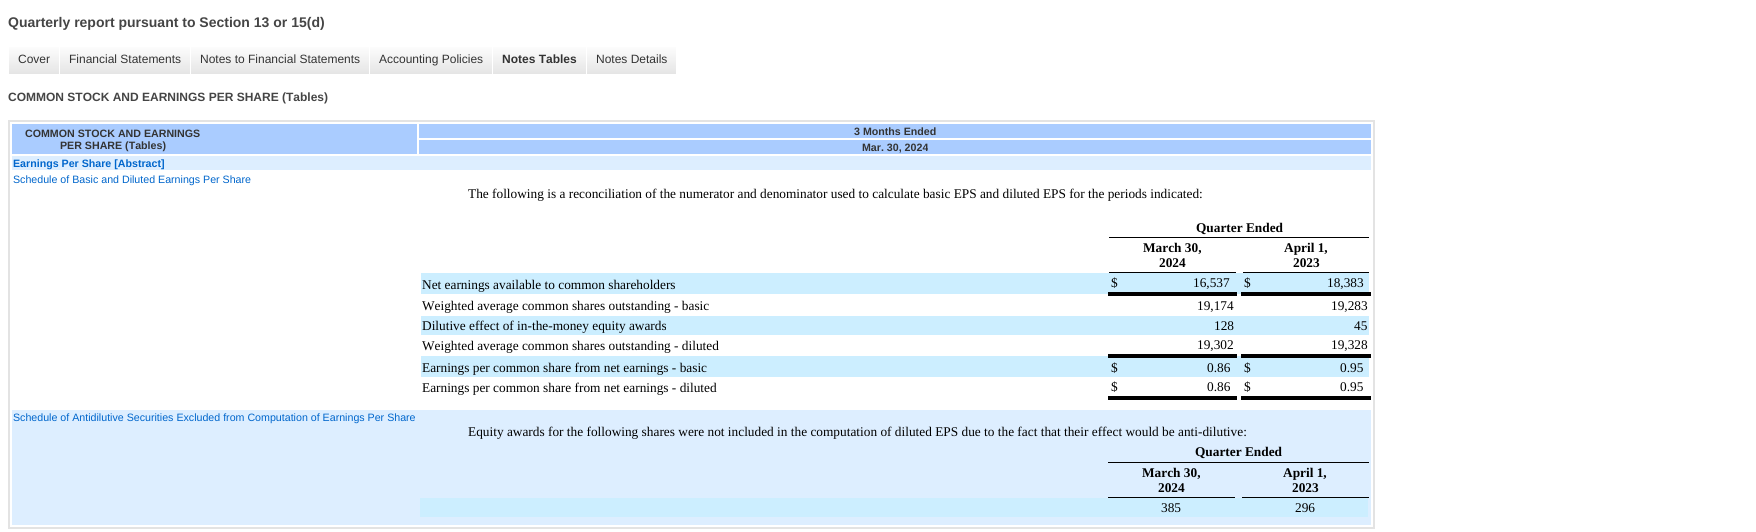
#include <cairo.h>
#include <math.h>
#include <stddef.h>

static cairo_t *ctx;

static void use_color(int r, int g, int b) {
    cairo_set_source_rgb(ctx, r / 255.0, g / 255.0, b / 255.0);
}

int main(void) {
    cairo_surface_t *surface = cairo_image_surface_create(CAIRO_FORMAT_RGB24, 1756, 532);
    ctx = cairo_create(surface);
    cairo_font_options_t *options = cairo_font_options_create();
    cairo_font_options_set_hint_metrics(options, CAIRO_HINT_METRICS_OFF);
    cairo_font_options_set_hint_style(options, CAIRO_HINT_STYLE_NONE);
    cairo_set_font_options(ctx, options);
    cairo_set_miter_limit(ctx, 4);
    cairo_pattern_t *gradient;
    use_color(255, 255, 255);
    cairo_paint(ctx);
    cairo_select_font_face(ctx, "Liberation Sans", CAIRO_FONT_SLANT_NORMAL, CAIRO_FONT_WEIGHT_BOLD);
    cairo_set_font_size(ctx, 14);
    use_color(69, 69, 69);
    cairo_move_to(ctx, 8, 27);
    cairo_show_text(ctx, "Quarterly report pursuant to Section 13 or 15(d)");
    gradient = cairo_pattern_create_linear(34, 44, 34, 74);
    cairo_pattern_add_color_stop_rgba(gradient, 0, 1, 1, 1, 1);
    cairo_pattern_add_color_stop_rgba(gradient, 1, 0.898, 0.898, 0.898, 1);
    cairo_set_source(ctx, gradient);
    cairo_pattern_destroy(gradient);
    cairo_rectangle(ctx, 9, 47, 50, 27);
    cairo_fill(ctx);
    cairo_select_font_face(ctx, "Liberation Sans", CAIRO_FONT_SLANT_NORMAL, CAIRO_FONT_WEIGHT_NORMAL);
    cairo_set_font_size(ctx, 12);
    use_color(51, 51, 51);
    cairo_move_to(ctx, 18, 63);
    cairo_show_text(ctx, "Cover");
    gradient = cairo_pattern_create_linear(125, 44, 125, 74);
    cairo_pattern_add_color_stop_rgba(gradient, 0, 1, 1, 1, 1);
    cairo_pattern_add_color_stop_rgba(gradient, 1, 0.898, 0.898, 0.898, 1);
    cairo_set_source(ctx, gradient);
    cairo_pattern_destroy(gradient);
    cairo_rectangle(ctx, 60, 47, 130, 27);
    cairo_fill(ctx);
    use_color(51, 51, 51);
    cairo_move_to(ctx, 69, 63);
    cairo_show_text(ctx, "Financial Statements");
    gradient = cairo_pattern_create_linear(280, 44, 280, 74);
    cairo_pattern_add_color_stop_rgba(gradient, 0, 1, 1, 1, 1);
    cairo_pattern_add_color_stop_rgba(gradient, 1, 0.898, 0.898, 0.898, 1);
    cairo_set_source(ctx, gradient);
    cairo_pattern_destroy(gradient);
    cairo_rectangle(ctx, 191, 47, 178, 27);
    cairo_fill(ctx);
    use_color(51, 51, 51);
    cairo_move_to(ctx, 200, 63);
    cairo_show_text(ctx, "Notes to Financial Statements");
    gradient = cairo_pattern_create_linear(431, 44, 431, 74);
    cairo_pattern_add_color_stop_rgba(gradient, 0, 1, 1, 1, 1);
    cairo_pattern_add_color_stop_rgba(gradient, 1, 0.898, 0.898, 0.898, 1);
    cairo_set_source(ctx, gradient);
    cairo_pattern_destroy(gradient);
    cairo_rectangle(ctx, 370, 47, 122, 27);
    cairo_fill(ctx);
    use_color(51, 51, 51);
    cairo_move_to(ctx, 379, 63);
    cairo_show_text(ctx, "Accounting Policies");
    gradient = cairo_pattern_create_linear(540, 44, 540, 74);
    cairo_pattern_add_color_stop_rgba(gradient, 0, 1, 1, 1, 1);
    cairo_pattern_add_color_stop_rgba(gradient, 1, 0.898, 0.898, 0.898, 1);
    cairo_set_source(ctx, gradient);
    cairo_pattern_destroy(gradient);
    cairo_rectangle(ctx, 493, 47, 93, 27);
    cairo_fill(ctx);
    cairo_select_font_face(ctx, "Liberation Sans", CAIRO_FONT_SLANT_NORMAL, CAIRO_FONT_WEIGHT_BOLD);
    use_color(51, 51, 51);
    cairo_move_to(ctx, 502, 63);
    cairo_show_text(ctx, "Notes Tables");
    gradient = cairo_pattern_create_linear(632, 44, 632, 74);
    cairo_pattern_add_color_stop_rgba(gradient, 0, 1, 1, 1, 1);
    cairo_pattern_add_color_stop_rgba(gradient, 1, 0.898, 0.898, 0.898, 1);
    cairo_set_source(ctx, gradient);
    cairo_pattern_destroy(gradient);
    cairo_rectangle(ctx, 587, 47, 89, 27);
    cairo_fill(ctx);
    cairo_select_font_face(ctx, "Liberation Sans", CAIRO_FONT_SLANT_NORMAL, CAIRO_FONT_WEIGHT_NORMAL);
    use_color(51, 51, 51);
    cairo_move_to(ctx, 596, 63);
    cairo_show_text(ctx, "Notes Details");
    cairo_select_font_face(ctx, "Liberation Sans", CAIRO_FONT_SLANT_NORMAL, CAIRO_FONT_WEIGHT_BOLD);
    use_color(69, 69, 69);
    cairo_move_to(ctx, 8, 101);
    cairo_show_text(ctx, "COMMON STOCK AND EARNINGS PER SHARE (Tables)");
    cairo_rectangle(ctx, 9, 121, 1365, 407);
    use_color(227, 227, 227);
    cairo_stroke(ctx);
    use_color(170, 204, 255);
    cairo_rectangle(ctx, 12, 124, 405, 30);
    cairo_fill(ctx);
    cairo_set_font_size(ctx, 10.65);
    use_color(51, 51, 51);
    cairo_move_to(ctx, 25, 137);
    cairo_show_text(ctx, "COMMON STOCK AND EARNINGS");
    cairo_move_to(ctx, 60, 149);
    cairo_show_text(ctx, "PER SHARE (Tables)");
    use_color(170, 204, 255);
    cairo_rectangle(ctx, 419, 124, 952, 14);
    cairo_fill(ctx);
    use_color(51, 51, 51);
    cairo_move_to(ctx, 854, 135);
    cairo_show_text(ctx, "3 Months Ended");
    use_color(170, 204, 255);
    cairo_rectangle(ctx, 419, 140, 952, 14);
    cairo_fill(ctx);
    use_color(51, 51, 51);
    cairo_move_to(ctx, 862, 151);
    cairo_show_text(ctx, "Mar. 30, 2024");
    use_color(221, 238, 255);
    cairo_rectangle(ctx, 12, 156, 1359, 14);
    cairo_fill(ctx);
    use_color(0, 102, 204);
    cairo_move_to(ctx, 13, 167);
    cairo_show_text(ctx, "Earnings Per Share [Abstract]");
    cairo_select_font_face(ctx, "Liberation Sans", CAIRO_FONT_SLANT_NORMAL, CAIRO_FONT_WEIGHT_NORMAL);
    cairo_move_to(ctx, 13, 183);
    cairo_show_text(ctx, "Schedule of Basic and Diluted Earnings Per Share");
    cairo_select_font_face(ctx, "Liberation Serif", CAIRO_FONT_SLANT_NORMAL, CAIRO_FONT_WEIGHT_NORMAL);
    cairo_set_font_size(ctx, 13.33);
    use_color(0, 0, 0);
    cairo_move_to(ctx, 468, 198);
    cairo_show_text(ctx, "The following is a reconciliation of the numerator and denominator used to calculate basic EPS and diluted EPS for the periods indicated:");
    cairo_select_font_face(ctx, "Liberation Serif", CAIRO_FONT_SLANT_NORMAL, CAIRO_FONT_WEIGHT_BOLD);
    cairo_move_to(ctx, 1196, 232);
    cairo_show_text(ctx, "Quarter Ended");
    cairo_move_to(ctx, 1143, 252);
    cairo_show_text(ctx, "March 30,");
    cairo_move_to(ctx, 1159, 267);
    cairo_show_text(ctx, "2024");
    cairo_rectangle(ctx, 1109, 237, 260, 1);
    cairo_fill(ctx);
    cairo_move_to(ctx, 1284, 252);
    cairo_show_text(ctx, "April 1,");
    cairo_move_to(ctx, 1293, 267);
    cairo_show_text(ctx, "2023");
    use_color(204, 238, 255);
    cairo_rectangle(ctx, 1233, 273, 10, 21);
    cairo_fill(ctx);
    use_color(0, 0, 0);
    cairo_rectangle(ctx, 1109, 272, 127, 1);
    cairo_fill(ctx);
    use_color(204, 238, 255);
    cairo_rectangle(ctx, 1367, 273, 2, 21);
    cairo_fill(ctx);
    use_color(0, 0, 0);
    cairo_rectangle(ctx, 1243, 272, 126, 1);
    cairo_fill(ctx);
    use_color(204, 238, 255);
    cairo_rectangle(ctx, 421, 273, 689, 21);
    cairo_fill(ctx);
    cairo_select_font_face(ctx, "Liberation Serif", CAIRO_FONT_SLANT_NORMAL, CAIRO_FONT_WEIGHT_NORMAL);
    use_color(0, 0, 0);
    cairo_move_to(ctx, 422, 289);
    cairo_show_text(ctx, "Net earnings available to common shareholders");
    use_color(204, 238, 255);
    cairo_rectangle(ctx, 1110, 273, 123, 19);
    cairo_fill(ctx);
    use_color(0, 0, 0);
    cairo_move_to(ctx, 1111, 287);
    cairo_show_text(ctx, "$");
    cairo_move_to(ctx, 1193, 287);
    cairo_show_text(ctx, "16,537");
    use_color(204, 238, 255);
    cairo_rectangle(ctx, 1243, 273, 124, 19);
    cairo_fill(ctx);
    use_color(0, 0, 0);
    cairo_move_to(ctx, 1244, 287);
    cairo_show_text(ctx, "$");
    cairo_move_to(ctx, 1327, 287);
    cairo_show_text(ctx, "18,383");
    cairo_move_to(ctx, 422, 310);
    cairo_show_text(ctx, "Weighted average common shares outstanding - basic");
    cairo_rectangle(ctx, 1108, 292, 129, 4);
    cairo_fill(ctx);
    cairo_move_to(ctx, 1197, 310);
    cairo_show_text(ctx, "19,174");
    cairo_rectangle(ctx, 1241, 292, 130, 4);
    cairo_fill(ctx);
    cairo_move_to(ctx, 1331, 310);
    cairo_show_text(ctx, "19,283");
    use_color(204, 238, 255);
    cairo_rectangle(ctx, 421, 316, 948, 19);
    cairo_fill(ctx);
    use_color(0, 0, 0);
    cairo_move_to(ctx, 422, 330);
    cairo_show_text(ctx, "Dilutive effect of in-the-money equity awards");
    cairo_move_to(ctx, 1214, 330);
    cairo_show_text(ctx, "128");
    cairo_move_to(ctx, 1354, 330);
    cairo_show_text(ctx, "45");
    cairo_move_to(ctx, 422, 350);
    cairo_show_text(ctx, "Weighted average common shares outstanding - diluted");
    cairo_move_to(ctx, 1197, 349);
    cairo_show_text(ctx, "19,302");
    cairo_move_to(ctx, 1331, 349);
    cairo_show_text(ctx, "19,328");
    use_color(204, 238, 255);
    cairo_rectangle(ctx, 421, 356, 689, 21);
    cairo_fill(ctx);
    use_color(0, 0, 0);
    cairo_move_to(ctx, 422, 372);
    cairo_show_text(ctx, "Earnings per common share from net earnings - basic");
    use_color(204, 238, 255);
    cairo_rectangle(ctx, 1233, 356, 10, 21);
    cairo_fill(ctx);
    use_color(0, 0, 0);
    cairo_rectangle(ctx, 1108, 354, 129, 4);
    cairo_fill(ctx);
    use_color(204, 238, 255);
    cairo_rectangle(ctx, 1367, 356, 2, 21);
    cairo_fill(ctx);
    use_color(0, 0, 0);
    cairo_rectangle(ctx, 1241, 354, 130, 4);
    cairo_fill(ctx);
    use_color(204, 238, 255);
    cairo_rectangle(ctx, 1110, 358, 123, 19);
    cairo_fill(ctx);
    use_color(0, 0, 0);
    cairo_move_to(ctx, 1111, 372);
    cairo_show_text(ctx, "$");
    cairo_move_to(ctx, 1207, 372);
    cairo_show_text(ctx, "0.86");
    use_color(204, 238, 255);
    cairo_rectangle(ctx, 1243, 358, 124, 19);
    cairo_fill(ctx);
    use_color(0, 0, 0);
    cairo_move_to(ctx, 1244, 372);
    cairo_show_text(ctx, "$");
    cairo_move_to(ctx, 1340, 372);
    cairo_show_text(ctx, "0.95");
    cairo_move_to(ctx, 422, 392);
    cairo_show_text(ctx, "Earnings per common share from net earnings - diluted");
    cairo_move_to(ctx, 1111, 391);
    cairo_show_text(ctx, "$");
    cairo_move_to(ctx, 1207, 391);
    cairo_show_text(ctx, "0.86");
    cairo_move_to(ctx, 1244, 391);
    cairo_show_text(ctx, "$");
    cairo_move_to(ctx, 1340, 391);
    cairo_show_text(ctx, "0.95");
    cairo_rectangle(ctx, 1108, 396, 129, 4);
    cairo_fill(ctx);
    cairo_rectangle(ctx, 1241, 396, 130, 4);
    cairo_fill(ctx);
    use_color(221, 238, 255);
    cairo_rectangle(ctx, 12, 410, 1359, 115);
    cairo_fill(ctx);
    cairo_select_font_face(ctx, "Liberation Sans", CAIRO_FONT_SLANT_NORMAL, CAIRO_FONT_WEIGHT_NORMAL);
    cairo_set_font_size(ctx, 10.65);
    use_color(0, 102, 204);
    cairo_move_to(ctx, 13, 421);
    cairo_show_text(ctx, "Schedule of Antidilutive Securities Excluded from Computation of Earnings Per Share");
    cairo_select_font_face(ctx, "Liberation Serif", CAIRO_FONT_SLANT_NORMAL, CAIRO_FONT_WEIGHT_NORMAL);
    cairo_set_font_size(ctx, 13.33);
    use_color(0, 0, 0);
    cairo_move_to(ctx, 468, 436);
    cairo_show_text(ctx, "Equity awards for the following shares were not included in the computation of diluted EPS due to the fact that their effect would be anti-dilutive:");
    cairo_select_font_face(ctx, "Liberation Serif", CAIRO_FONT_SLANT_NORMAL, CAIRO_FONT_WEIGHT_BOLD);
    cairo_move_to(ctx, 1195, 456);
    cairo_show_text(ctx, "Quarter Ended");
    cairo_move_to(ctx, 1142, 477);
    cairo_show_text(ctx, "March 30,");
    cairo_move_to(ctx, 1158, 492);
    cairo_show_text(ctx, "2024");
    cairo_rectangle(ctx, 1108, 462, 261, 1);
    cairo_fill(ctx);
    cairo_move_to(ctx, 1283, 477);
    cairo_show_text(ctx, "April 1,");
    cairo_move_to(ctx, 1292, 492);
    cairo_show_text(ctx, "2023");
    use_color(204, 238, 255);
    cairo_rectangle(ctx, 420, 498, 948, 19);
    cairo_fill(ctx);
    use_color(0, 0, 0);
    cairo_rectangle(ctx, 1108, 497, 127, 1);
    cairo_fill(ctx);
    cairo_select_font_face(ctx, "Liberation Serif", CAIRO_FONT_SLANT_NORMAL, CAIRO_FONT_WEIGHT_NORMAL);
    cairo_move_to(ctx, 1161, 512);
    cairo_show_text(ctx, "385");
    cairo_rectangle(ctx, 1242, 497, 127, 1);
    cairo_fill(ctx);
    cairo_move_to(ctx, 1295, 512);
    cairo_show_text(ctx, "296");
    cairo_surface_write_to_png(surface, "result.png");
    cairo_font_options_destroy(options);
    cairo_destroy(ctx);
    cairo_surface_destroy(surface);
    return 0;
}
